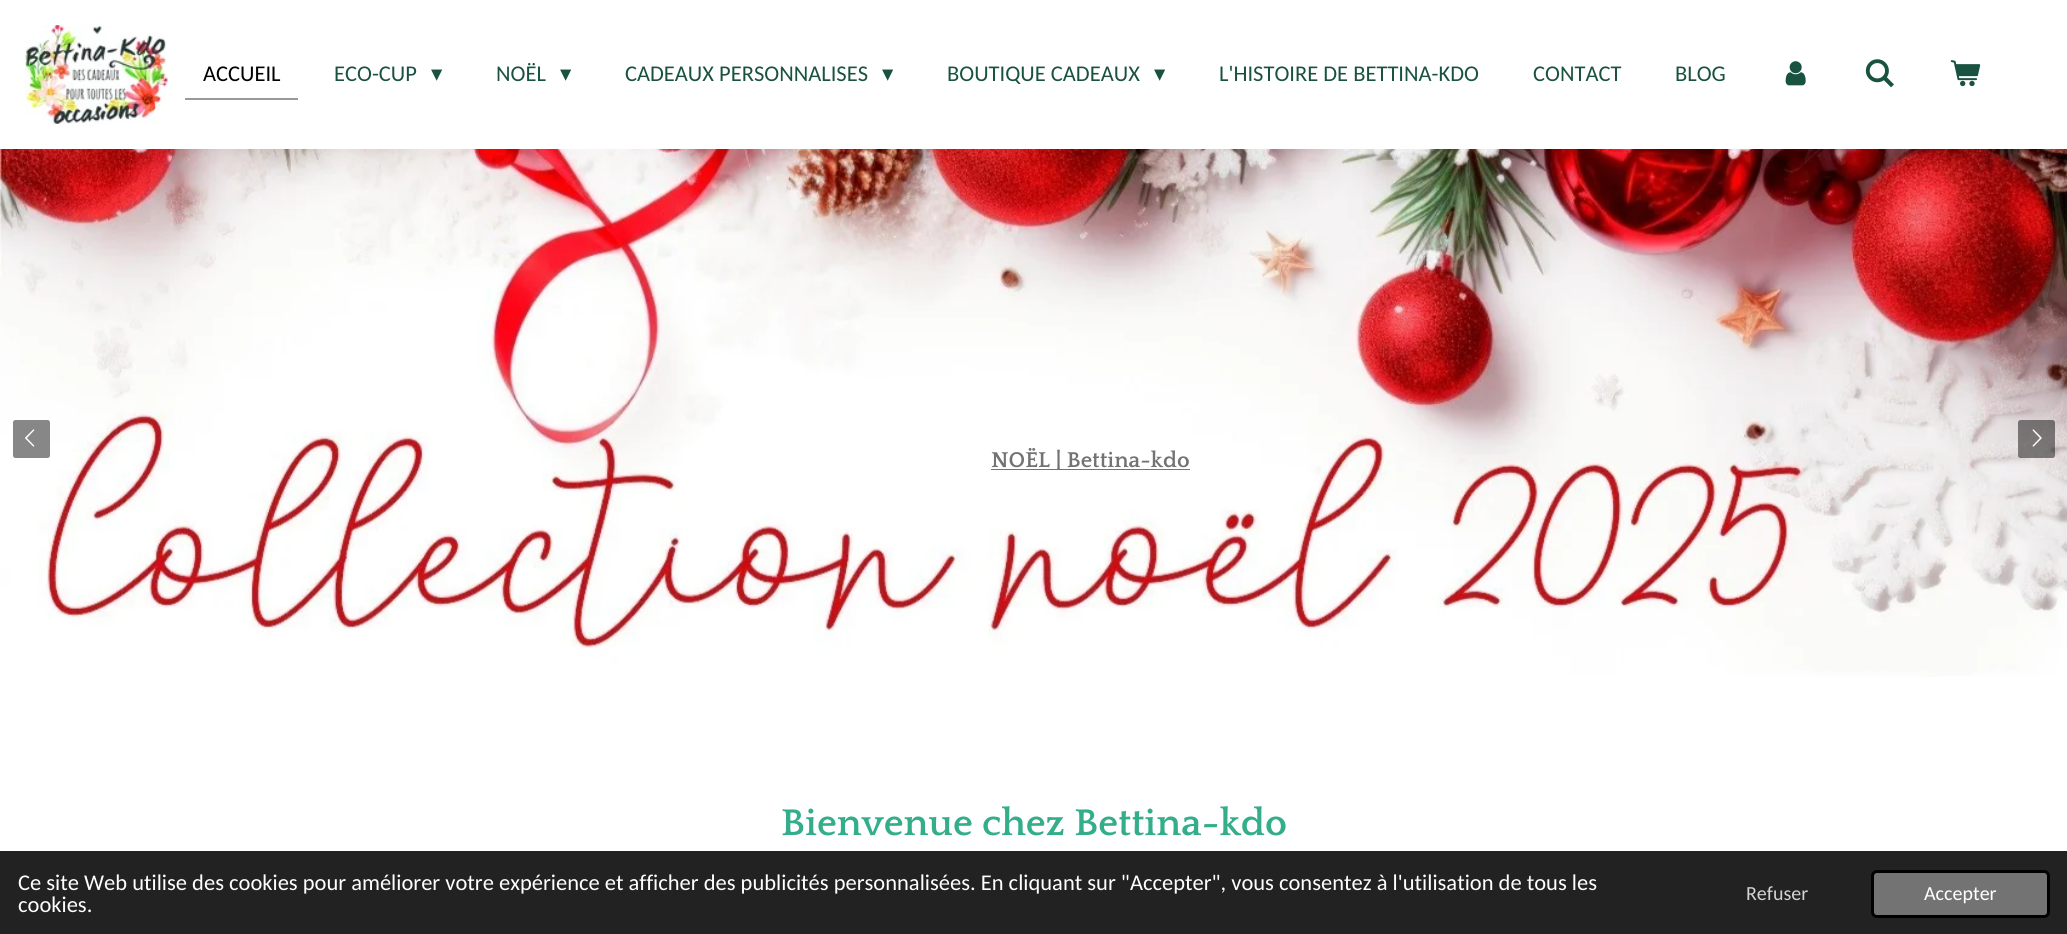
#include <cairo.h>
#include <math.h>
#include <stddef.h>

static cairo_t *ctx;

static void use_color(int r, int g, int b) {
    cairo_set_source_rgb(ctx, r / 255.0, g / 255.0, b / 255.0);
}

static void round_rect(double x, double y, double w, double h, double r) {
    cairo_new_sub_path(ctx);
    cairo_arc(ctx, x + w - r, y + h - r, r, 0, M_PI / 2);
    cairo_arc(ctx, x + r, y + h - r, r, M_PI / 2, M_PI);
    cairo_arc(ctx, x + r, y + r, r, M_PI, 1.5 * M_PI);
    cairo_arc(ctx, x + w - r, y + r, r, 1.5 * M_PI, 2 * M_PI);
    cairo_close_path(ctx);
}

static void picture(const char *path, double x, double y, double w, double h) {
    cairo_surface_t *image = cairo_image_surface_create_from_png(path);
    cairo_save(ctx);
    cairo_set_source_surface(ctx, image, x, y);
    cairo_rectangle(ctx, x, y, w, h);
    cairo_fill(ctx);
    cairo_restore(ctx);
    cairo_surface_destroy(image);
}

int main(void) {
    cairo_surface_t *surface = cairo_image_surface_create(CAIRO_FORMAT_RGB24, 2067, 934);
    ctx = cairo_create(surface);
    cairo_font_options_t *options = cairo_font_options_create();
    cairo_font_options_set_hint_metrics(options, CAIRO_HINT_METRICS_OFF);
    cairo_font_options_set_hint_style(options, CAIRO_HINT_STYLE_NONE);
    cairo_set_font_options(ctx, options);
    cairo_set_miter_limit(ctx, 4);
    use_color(255, 255, 255);
    cairo_paint(ctx);
    picture("img1.png", 25, 25, 143, 99);
    use_color(153, 153, 153);
    cairo_new_path(ctx);
    cairo_move_to(ctx, 185, 98);
    cairo_line_to(ctx, 185, 100);
    cairo_line_to(ctx, 298, 100);
    cairo_line_to(ctx, 298, 54);
    cairo_line_to(ctx, 298, 98);
    cairo_close_path(ctx);
    cairo_fill(ctx);
    cairo_select_font_face(ctx, "Carlito", CAIRO_FONT_SLANT_NORMAL, CAIRO_FONT_WEIGHT_NORMAL);
    cairo_set_font_size(ctx, 22.5);
    use_color(0, 0, 0);
    cairo_move_to(ctx, 203, 81);
    cairo_show_text(ctx, "ACCUEIL");
    use_color(25, 82, 65);
    cairo_move_to(ctx, 334, 81);
    cairo_show_text(ctx, "ECO-CUP");
    cairo_select_font_face(ctx, "DejaVu Sans", CAIRO_FONT_SLANT_NORMAL, CAIRO_FONT_WEIGHT_NORMAL);
    cairo_move_to(ctx, 431, 81);
    cairo_show_text(ctx, "▾");
    cairo_select_font_face(ctx, "Carlito", CAIRO_FONT_SLANT_NORMAL, CAIRO_FONT_WEIGHT_NORMAL);
    cairo_move_to(ctx, 496, 81);
    cairo_show_text(ctx, "NOËL");
    cairo_select_font_face(ctx, "DejaVu Sans", CAIRO_FONT_SLANT_NORMAL, CAIRO_FONT_WEIGHT_NORMAL);
    cairo_move_to(ctx, 560, 81);
    cairo_show_text(ctx, "▾");
    cairo_select_font_face(ctx, "Carlito", CAIRO_FONT_SLANT_NORMAL, CAIRO_FONT_WEIGHT_NORMAL);
    cairo_move_to(ctx, 625, 81);
    cairo_show_text(ctx, "CADEAUX PERSONNALISES");
    cairo_select_font_face(ctx, "DejaVu Sans", CAIRO_FONT_SLANT_NORMAL, CAIRO_FONT_WEIGHT_NORMAL);
    cairo_move_to(ctx, 882, 81);
    cairo_show_text(ctx, "▾");
    cairo_select_font_face(ctx, "Carlito", CAIRO_FONT_SLANT_NORMAL, CAIRO_FONT_WEIGHT_NORMAL);
    cairo_move_to(ctx, 947, 81);
    cairo_show_text(ctx, "BOUTIQUE CADEAUX");
    cairo_select_font_face(ctx, "DejaVu Sans", CAIRO_FONT_SLANT_NORMAL, CAIRO_FONT_WEIGHT_NORMAL);
    cairo_move_to(ctx, 1154, 81);
    cairo_show_text(ctx, "▾");
    cairo_select_font_face(ctx, "Carlito", CAIRO_FONT_SLANT_NORMAL, CAIRO_FONT_WEIGHT_NORMAL);
    cairo_move_to(ctx, 1219, 81);
    cairo_show_text(ctx, "L'HISTOIRE DE BETTINA-KDO");
    cairo_move_to(ctx, 1533, 81);
    cairo_show_text(ctx, "CONTACT");
    cairo_move_to(ctx, 1675, 81);
    cairo_show_text(ctx, "BLOG");
    picture("img2.png", 1785, 61, 21, 25);
    picture("img3.png", 1865, 59, 29, 29);
    picture("img4.png", 1950, 60, 31, 27);
    picture("img7.png", 0, 149, 2067, 528);
    use_color(135, 135, 135);
    round_rect(13, 420, 37, 38, 2.5);
    cairo_fill(ctx);
    picture("img5.png", 25, 429, 10, 18);
    cairo_set_source_rgba(ctx, 0.059, 0.059, 0.059, 0.5);
    round_rect(2018, 420, 37, 38, 2.5);
    cairo_fill(ctx);
    picture("img6.png", 2032, 429, 10, 18);
    use_color(115, 115, 115);
    cairo_rectangle(ctx, 991, 469, 199, 1);
    cairo_fill(ctx);
    cairo_select_font_face(ctx, "Quattrocento", CAIRO_FONT_SLANT_NORMAL, CAIRO_FONT_WEIGHT_BOLD);
    cairo_move_to(ctx, 991, 467);
    cairo_show_text(ctx, "NOËL | Bettina-kdo");
    cairo_set_font_size(ctx, 39);
    use_color(52, 174, 138);
    cairo_move_to(ctx, 781, 835);
    cairo_show_text(ctx, "Bienvenue chez Bettina-kdo");
    use_color(34, 34, 34);
    cairo_rectangle(ctx, 0, 851, 2067, 83);
    cairo_fill(ctx);
    cairo_select_font_face(ctx, "Carlito", CAIRO_FONT_SLANT_NORMAL, CAIRO_FONT_WEIGHT_NORMAL);
    cairo_set_font_size(ctx, 22.5);
    use_color(255, 255, 255);
    cairo_move_to(ctx, 18, 890);
    cairo_show_text(ctx, "Ce site Web utilise des cookies pour améliorer votre expérience et afficher des publicités personnalisées. En cliquant sur \"Accepter\", vous consentez à l'utilisation de tous les");
    cairo_move_to(ctx, 18, 912);
    cairo_show_text(ctx, "cookies.");
    cairo_set_font_size(ctx, 20);
    use_color(211, 211, 211);
    cairo_move_to(ctx, 1746, 900);
    cairo_show_text(ctx, "Refuser");
    use_color(115, 115, 115);
    round_rect(1872.5, 871.5, 176, 45, 4.5);
    cairo_fill_preserve(ctx);
    use_color(0, 0, 0);
    cairo_set_line_width(ctx, 3);
    cairo_stroke(ctx);
    use_color(255, 255, 255);
    cairo_move_to(ctx, 1924, 900);
    cairo_show_text(ctx, "Accepter");
    cairo_surface_write_to_png(surface, "result.png");
    cairo_font_options_destroy(options);
    cairo_destroy(ctx);
    cairo_surface_destroy(surface);
    return 0;
}
